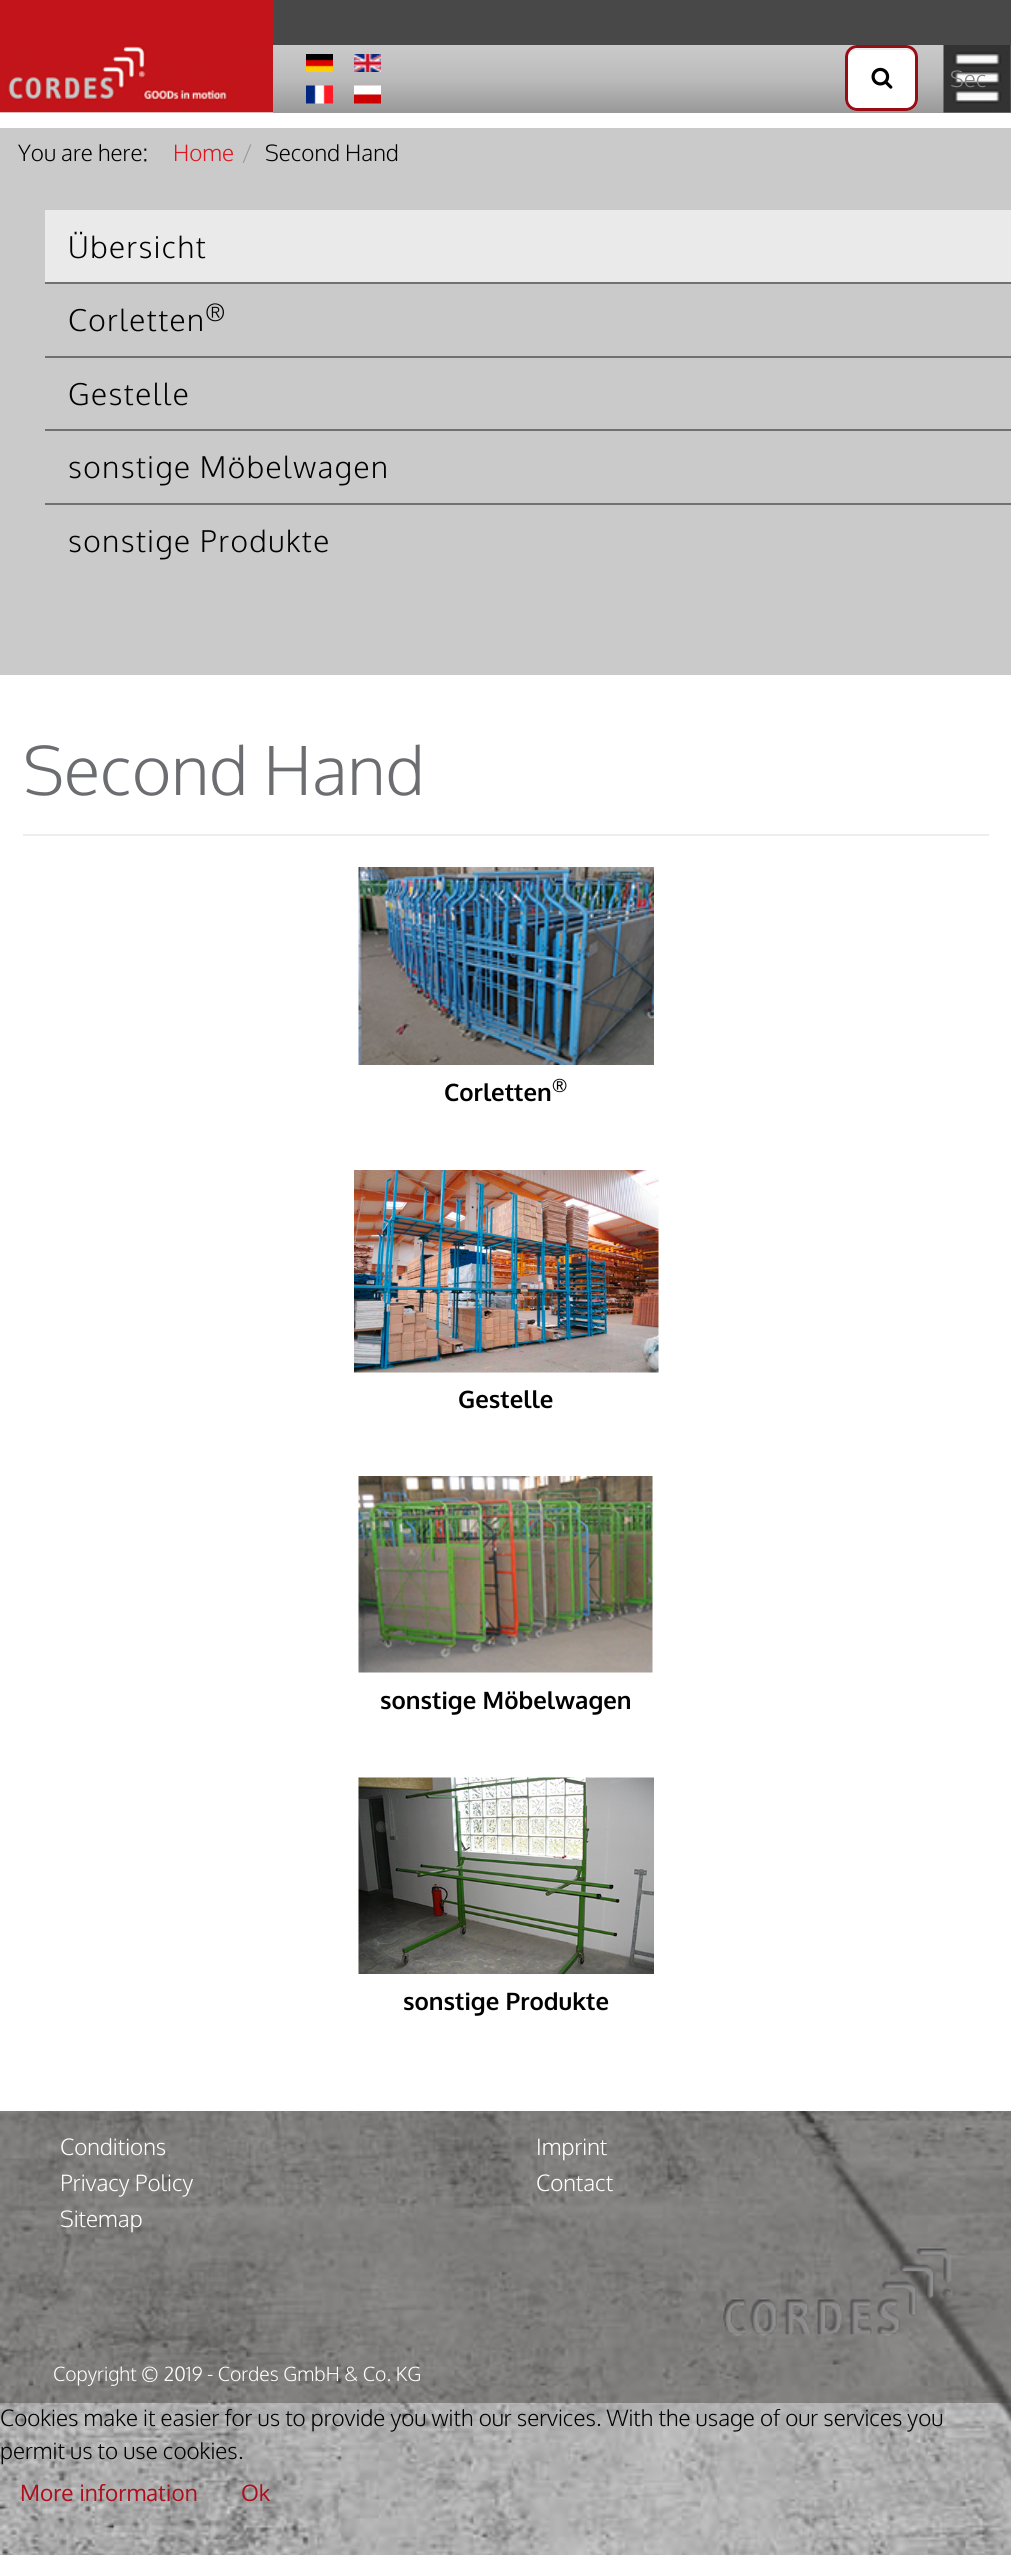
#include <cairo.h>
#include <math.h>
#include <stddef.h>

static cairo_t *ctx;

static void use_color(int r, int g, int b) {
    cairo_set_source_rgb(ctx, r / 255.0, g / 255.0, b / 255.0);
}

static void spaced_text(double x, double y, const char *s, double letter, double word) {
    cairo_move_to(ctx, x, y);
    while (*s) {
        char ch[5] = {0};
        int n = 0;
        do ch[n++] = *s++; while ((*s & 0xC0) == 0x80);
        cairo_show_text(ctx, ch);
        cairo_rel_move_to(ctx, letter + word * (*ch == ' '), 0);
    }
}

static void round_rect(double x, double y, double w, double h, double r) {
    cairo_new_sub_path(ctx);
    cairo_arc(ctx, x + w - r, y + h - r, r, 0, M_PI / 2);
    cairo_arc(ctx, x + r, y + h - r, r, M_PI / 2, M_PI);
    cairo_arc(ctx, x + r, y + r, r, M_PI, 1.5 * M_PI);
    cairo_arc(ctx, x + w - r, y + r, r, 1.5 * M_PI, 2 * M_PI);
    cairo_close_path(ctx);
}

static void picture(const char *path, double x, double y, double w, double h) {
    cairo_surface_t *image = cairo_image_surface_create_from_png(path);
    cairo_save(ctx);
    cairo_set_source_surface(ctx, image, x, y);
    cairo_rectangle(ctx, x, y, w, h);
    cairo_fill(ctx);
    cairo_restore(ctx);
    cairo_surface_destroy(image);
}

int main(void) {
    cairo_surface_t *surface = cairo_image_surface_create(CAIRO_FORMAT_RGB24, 1011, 2555);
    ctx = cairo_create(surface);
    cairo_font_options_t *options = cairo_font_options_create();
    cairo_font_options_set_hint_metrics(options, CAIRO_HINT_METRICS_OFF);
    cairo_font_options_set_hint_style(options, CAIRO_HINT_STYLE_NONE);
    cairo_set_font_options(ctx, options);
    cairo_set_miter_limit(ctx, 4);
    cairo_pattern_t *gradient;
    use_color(255, 255, 255);
    cairo_paint(ctx);
    picture("img1.png", 0, 2111, 1011, 444);
    use_color(72, 72, 72);
    cairo_rectangle(ctx, 273, 0, 738, 45);
    cairo_fill(ctx);
    gradient = cairo_pattern_create_linear(506, 45, 506, 113);
    cairo_pattern_add_color_stop_rgba(gradient, 0, 0.792, 0.792, 0.792, 1);
    cairo_pattern_add_color_stop_rgba(gradient, 0.5, 0.733, 0.733, 0.733, 1);
    cairo_pattern_add_color_stop_rgba(gradient, 1, 0.6, 0.6, 0.6, 1);
    cairo_set_source(ctx, gradient);
    cairo_pattern_destroy(gradient);
    cairo_rectangle(ctx, 273, 45, 738, 68);
    cairo_fill(ctx);
    use_color(238, 238, 238);
    cairo_rectangle(ctx, 0, 112, 273, 1);
    cairo_fill(ctx);
    picture("img2.png", 0, 0, 273, 113);
    picture("img3.png", 306, 54, 27, 18);
    picture("img4.png", 354, 54, 27, 18);
    picture("img5.png", 306, 85, 27, 19);
    picture("img6.png", 354, 85, 27, 19);
    use_color(255, 255, 255);
    round_rect(845, 45, 73, 66, 12);
    cairo_fill(ctx);
    use_color(236, 236, 236);
    cairo_new_path(ctx);
    cairo_move_to(ctx, 856, 50);
    cairo_line_to(ctx, 906, 50);
    cairo_curve_to(ctx, 911, 50, 915, 54, 915, 58);
    cairo_curve_to(ctx, 915, 47, 906, 48, 898, 48);
    cairo_line_to(ctx, 865, 48);
    cairo_curve_to(ctx, 857, 48, 848, 47, 848, 58);
    cairo_curve_to(ctx, 848, 54, 852, 50, 856, 50);
    cairo_close_path(ctx);
    cairo_fill(ctx);
    round_rect(846.5, 46.5, 70, 63, 10.5);
    use_color(153, 12, 20);
    cairo_set_line_width(ctx, 3);
    cairo_stroke(ctx);
    picture("img7.png", 871, 67, 22, 22);
    picture("img8.png", 943, 45, 68, 68);
    cairo_select_font_face(ctx, "Oxygen Light", CAIRO_FONT_SLANT_NORMAL, CAIRO_FONT_WEIGHT_NORMAL);
    cairo_set_font_size(ctx, 22.5);
    use_color(132, 132, 132);
    cairo_move_to(ctx, 950, 87);
    cairo_show_text(ctx, "Sec");
    use_color(202, 202, 202);
    cairo_rectangle(ctx, 0, 128, 1011, 547);
    cairo_fill(ctx);
    use_color(0, 0, 0);
    cairo_move_to(ctx, 18, 161);
    cairo_show_text(ctx, "You are here:");
    use_color(224, 18, 29);
    cairo_move_to(ctx, 173, 161);
    cairo_show_text(ctx, "Home");
    use_color(153, 153, 153);
    cairo_move_to(ctx, 242, 161);
    cairo_show_text(ctx, "/");
    use_color(0, 0, 0);
    cairo_move_to(ctx, 265, 161);
    cairo_show_text(ctx, "Second Hand");
    use_color(112, 112, 112);
    cairo_rectangle(ctx, 45, 282, 966, 2);
    cairo_fill(ctx);
    use_color(234, 234, 234);
    cairo_rectangle(ctx, 45, 210, 966, 72);
    cairo_fill(ctx);
    cairo_set_font_size(ctx, 30);
    use_color(0, 0, 0);
    spaced_text(68, 258, "Übersicht", 1.5, 0);
    use_color(112, 112, 112);
    cairo_rectangle(ctx, 45, 356, 966, 2);
    cairo_fill(ctx);
    use_color(0, 0, 0);
    spaced_text(68, 331, "Corletten", 1.5, 0);
    cairo_set_font_size(ctx, 22.5);
    spaced_text(205, 320, "®", 1.5, 0);
    use_color(112, 112, 112);
    cairo_rectangle(ctx, 45, 429, 966, 2);
    cairo_fill(ctx);
    cairo_set_font_size(ctx, 30);
    use_color(0, 0, 0);
    spaced_text(68, 405, "Gestelle", 1.5, 0);
    use_color(112, 112, 112);
    cairo_rectangle(ctx, 45, 503, 966, 2);
    cairo_fill(ctx);
    use_color(0, 0, 0);
    spaced_text(68, 478, "sonstige Möbelwagen", 1.5, 0);
    spaced_text(68, 552, "sonstige Produkte", 1.5, 0);
    use_color(238, 238, 238);
    cairo_rectangle(ctx, 23, 834, 966, 2);
    cairo_fill(ctx);
    cairo_set_font_size(ctx, 67.5);
    use_color(108, 109, 112);
    cairo_move_to(ctx, 23, 795);
    cairo_show_text(ctx, "Second Hand");
    picture("img9.png", 358, 867, 296, 198);
    cairo_select_font_face(ctx, "Oxygen", CAIRO_FONT_SLANT_NORMAL, CAIRO_FONT_WEIGHT_BOLD);
    cairo_set_font_size(ctx, 24);
    use_color(0, 0, 0);
    cairo_move_to(ctx, 444, 1101);
    cairo_show_text(ctx, "Corletten");
    cairo_set_font_size(ctx, 18);
    cairo_move_to(ctx, 552, 1092);
    cairo_show_text(ctx, "®");
    picture("img10.png", 354, 1170, 305, 203);
    cairo_set_font_size(ctx, 24);
    cairo_move_to(ctx, 458, 1408);
    cairo_show_text(ctx, "Gestelle");
    picture("img11.png", 358, 1476, 295, 197);
    cairo_move_to(ctx, 380, 1709);
    cairo_show_text(ctx, "sonstige Möbelwagen");
    picture("img12.png", 358, 1777, 296, 197);
    cairo_move_to(ctx, 403, 2010);
    cairo_show_text(ctx, "sonstige Produkte");
    cairo_set_source_rgba(ctx, 0.259, 0.227, 0.227, 0.42);
    cairo_rectangle(ctx, 0, 2111, 1011, 249);
    cairo_fill(ctx);
    cairo_select_font_face(ctx, "Oxygen Light", CAIRO_FONT_SLANT_NORMAL, CAIRO_FONT_WEIGHT_NORMAL);
    cairo_set_font_size(ctx, 22.5);
    use_color(255, 255, 255);
    cairo_move_to(ctx, 60, 2155);
    cairo_show_text(ctx, "Conditions");
    cairo_move_to(ctx, 60, 2191);
    cairo_show_text(ctx, "Privacy Policy");
    cairo_move_to(ctx, 60, 2227);
    cairo_show_text(ctx, "Sitemap");
    cairo_move_to(ctx, 536, 2155);
    cairo_show_text(ctx, "Imprint");
    cairo_move_to(ctx, 536, 2191);
    cairo_show_text(ctx, "Contact");
    picture("img13.png", 723, 2247, 230, 89);
    cairo_set_source_rgba(ctx, 0.259, 0.227, 0.227, 0.42);
    cairo_rectangle(ctx, 0, 2360, 1011, 43);
    cairo_fill(ctx);
    cairo_set_font_size(ctx, 19.5);
    use_color(255, 255, 255);
    cairo_move_to(ctx, 53, 2381);
    cairo_show_text(ctx, "Copyright © 2019 - Cordes GmbH & Co. KG");
    cairo_set_font_size(ctx, 22.5);
    use_color(0, 0, 0);
    cairo_move_to(ctx, 0, 2426);
    cairo_show_text(ctx, "Cookies make it easier for us to provide you with our services. With the usage of our services you");
    cairo_move_to(ctx, 0, 2459);
    cairo_show_text(ctx, "permit us to use cookies.");
    cairo_select_font_face(ctx, "Oxygen", CAIRO_FONT_SLANT_NORMAL, CAIRO_FONT_WEIGHT_NORMAL);
    use_color(175, 13, 27);
    cairo_move_to(ctx, 20, 2501);
    cairo_show_text(ctx, "More information");
    cairo_move_to(ctx, 241, 2501);
    cairo_show_text(ctx, "Ok");
    cairo_surface_write_to_png(surface, "result.png");
    cairo_font_options_destroy(options);
    cairo_destroy(ctx);
    cairo_surface_destroy(surface);
    return 0;
}
